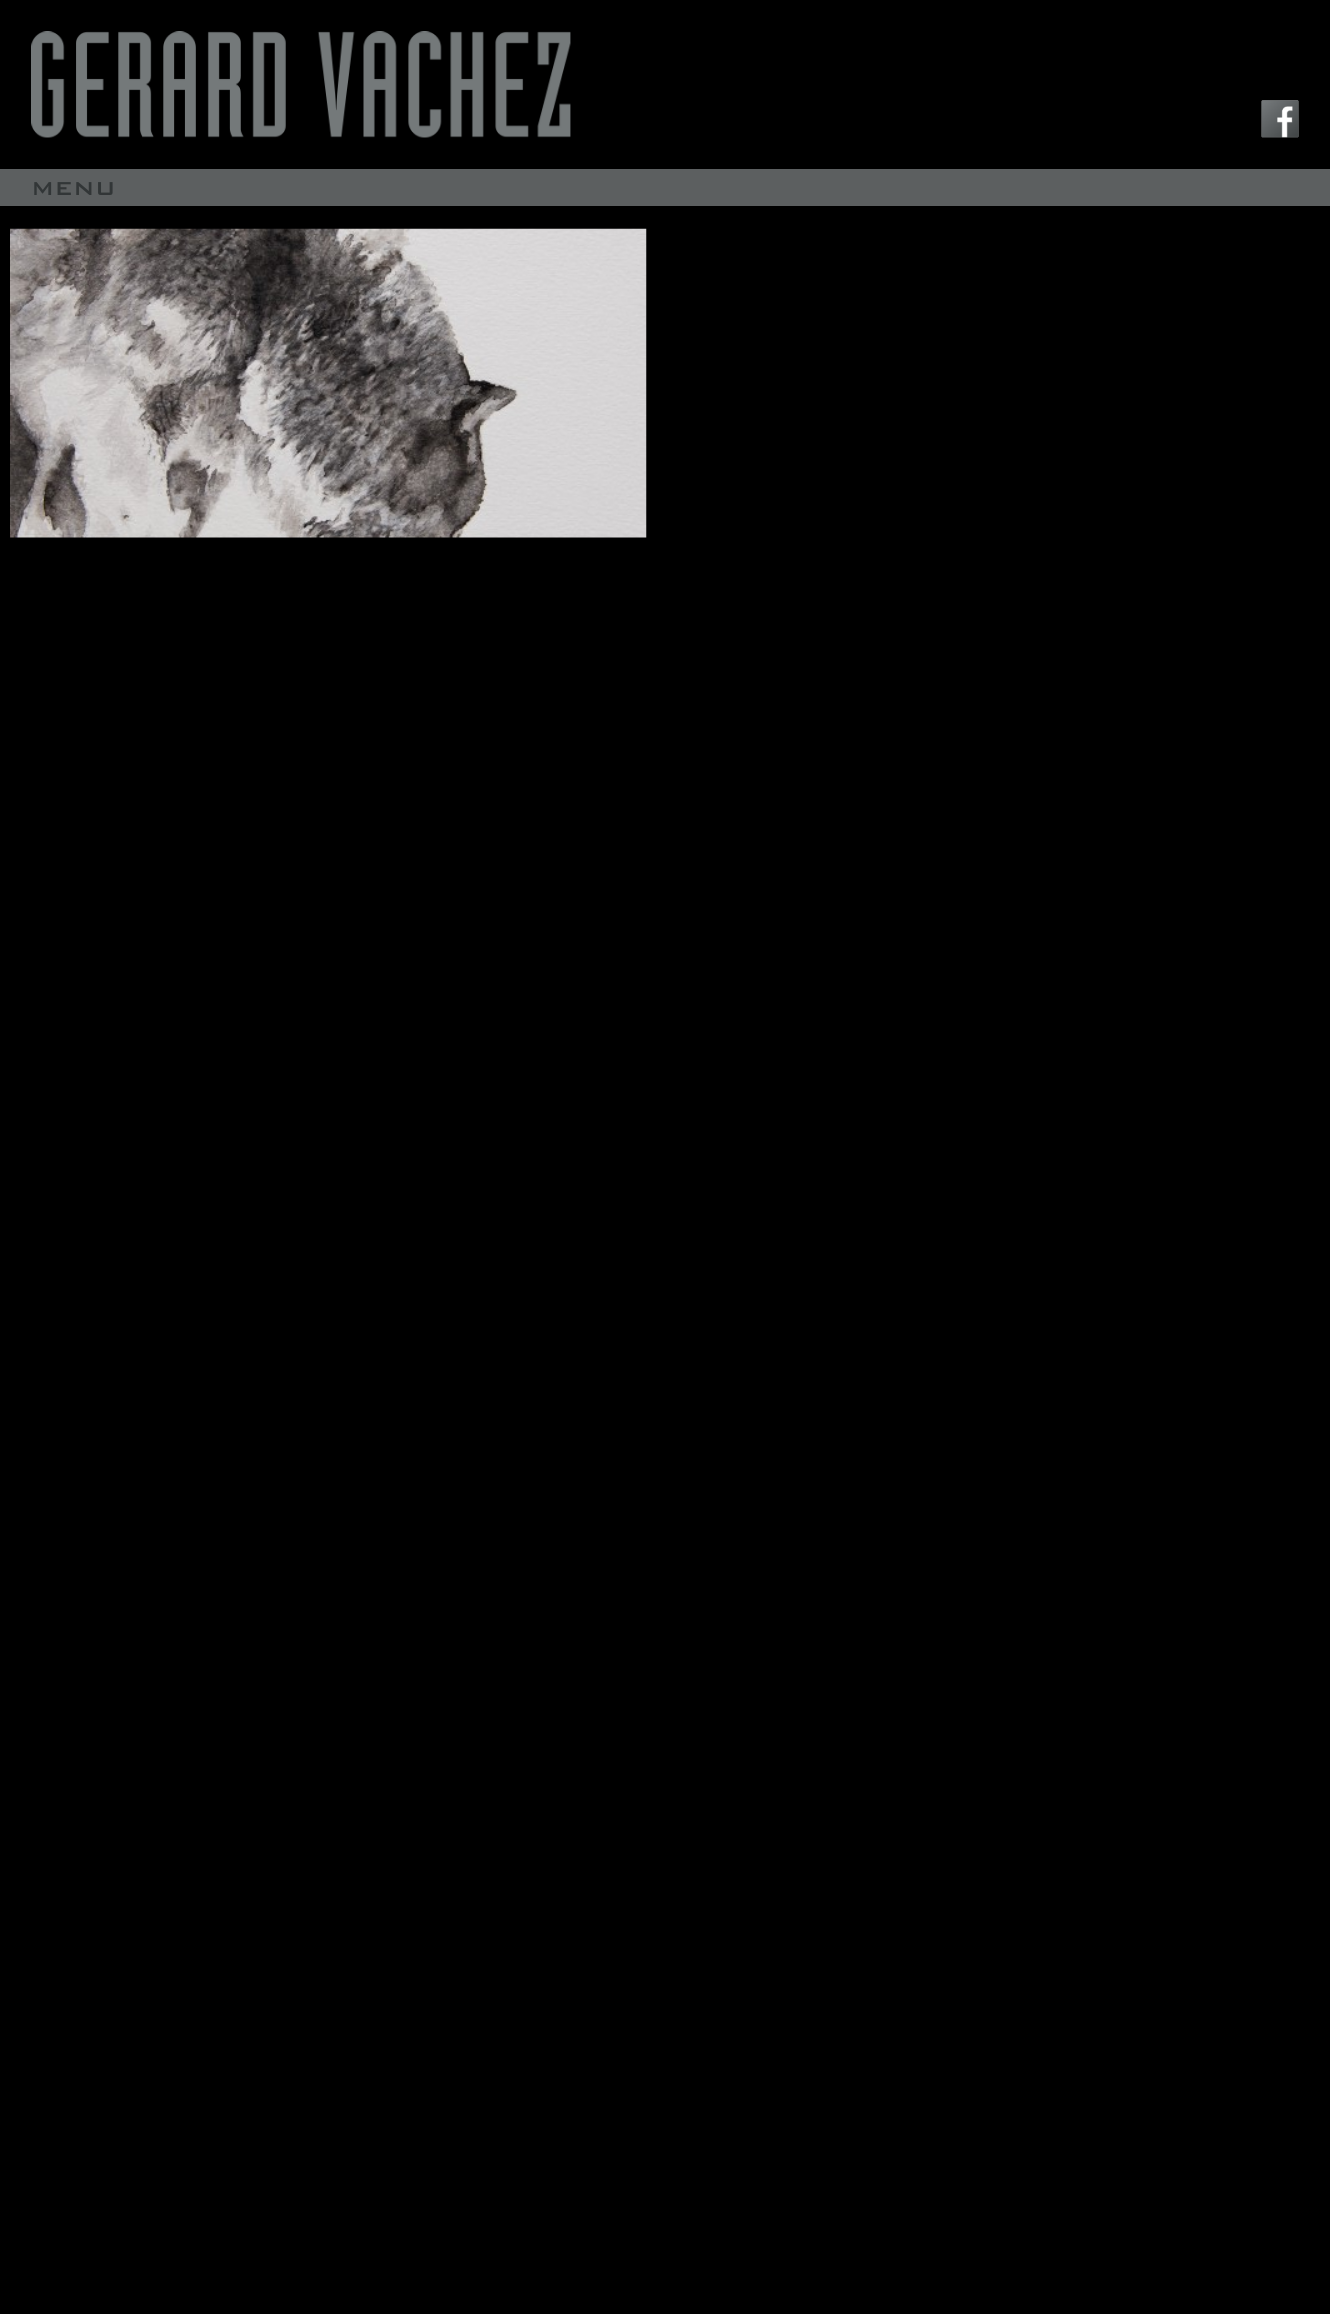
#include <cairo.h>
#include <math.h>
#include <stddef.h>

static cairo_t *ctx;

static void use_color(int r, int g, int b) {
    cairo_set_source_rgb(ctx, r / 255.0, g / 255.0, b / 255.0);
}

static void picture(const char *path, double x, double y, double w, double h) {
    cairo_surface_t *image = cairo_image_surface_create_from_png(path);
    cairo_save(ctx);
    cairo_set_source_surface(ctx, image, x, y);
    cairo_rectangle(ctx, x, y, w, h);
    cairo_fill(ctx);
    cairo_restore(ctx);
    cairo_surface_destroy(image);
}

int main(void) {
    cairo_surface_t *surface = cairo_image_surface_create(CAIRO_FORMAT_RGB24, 1330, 2314);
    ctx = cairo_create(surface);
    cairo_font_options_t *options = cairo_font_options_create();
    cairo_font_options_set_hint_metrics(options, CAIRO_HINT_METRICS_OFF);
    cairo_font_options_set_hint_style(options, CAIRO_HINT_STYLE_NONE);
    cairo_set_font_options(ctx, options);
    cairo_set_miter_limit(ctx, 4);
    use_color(0, 0, 0);
    cairo_paint(ctx);
    picture("img1.png", 31, 31, 540, 107);
    picture("img2.png", 1261, 100, 38, 38);
    use_color(92, 95, 96);
    cairo_rectangle(ctx, 0, 169, 1330, 37);
    cairo_fill(ctx);
    cairo_select_font_face(ctx, "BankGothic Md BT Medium", CAIRO_FONT_SLANT_NORMAL, CAIRO_FONT_WEIGHT_NORMAL);
    cairo_set_font_size(ctx, 25);
    use_color(50, 54, 55);
    cairo_move_to(ctx, 31, 195);
    cairo_show_text(ctx, "MENU");
    picture("img3.png", 10, 228, 637, 310);
    cairo_surface_write_to_png(surface, "result.png");
    cairo_font_options_destroy(options);
    cairo_destroy(ctx);
    cairo_surface_destroy(surface);
    return 0;
}
